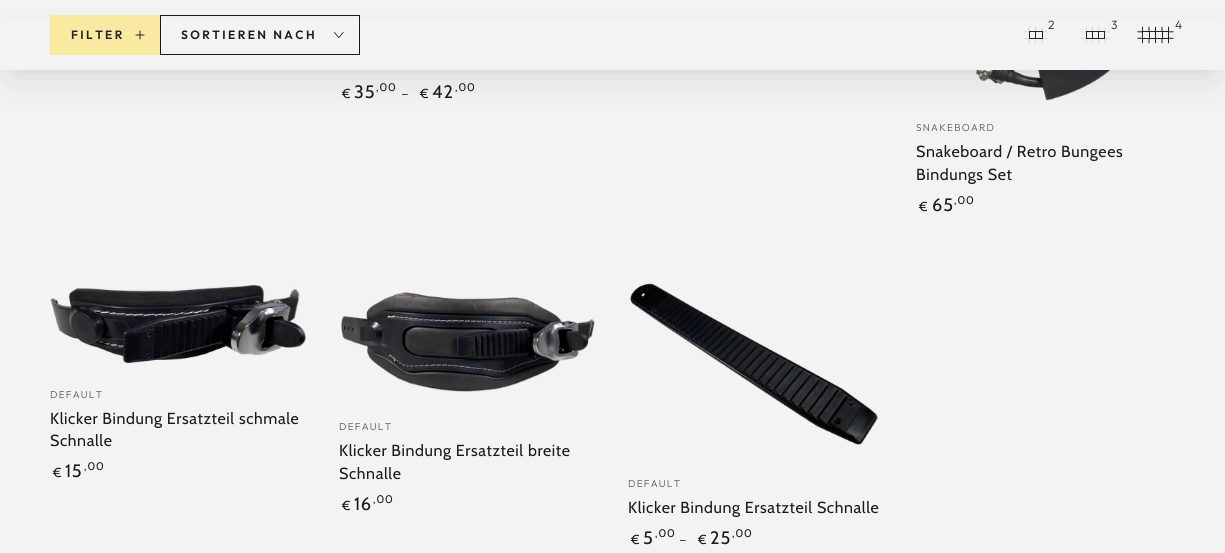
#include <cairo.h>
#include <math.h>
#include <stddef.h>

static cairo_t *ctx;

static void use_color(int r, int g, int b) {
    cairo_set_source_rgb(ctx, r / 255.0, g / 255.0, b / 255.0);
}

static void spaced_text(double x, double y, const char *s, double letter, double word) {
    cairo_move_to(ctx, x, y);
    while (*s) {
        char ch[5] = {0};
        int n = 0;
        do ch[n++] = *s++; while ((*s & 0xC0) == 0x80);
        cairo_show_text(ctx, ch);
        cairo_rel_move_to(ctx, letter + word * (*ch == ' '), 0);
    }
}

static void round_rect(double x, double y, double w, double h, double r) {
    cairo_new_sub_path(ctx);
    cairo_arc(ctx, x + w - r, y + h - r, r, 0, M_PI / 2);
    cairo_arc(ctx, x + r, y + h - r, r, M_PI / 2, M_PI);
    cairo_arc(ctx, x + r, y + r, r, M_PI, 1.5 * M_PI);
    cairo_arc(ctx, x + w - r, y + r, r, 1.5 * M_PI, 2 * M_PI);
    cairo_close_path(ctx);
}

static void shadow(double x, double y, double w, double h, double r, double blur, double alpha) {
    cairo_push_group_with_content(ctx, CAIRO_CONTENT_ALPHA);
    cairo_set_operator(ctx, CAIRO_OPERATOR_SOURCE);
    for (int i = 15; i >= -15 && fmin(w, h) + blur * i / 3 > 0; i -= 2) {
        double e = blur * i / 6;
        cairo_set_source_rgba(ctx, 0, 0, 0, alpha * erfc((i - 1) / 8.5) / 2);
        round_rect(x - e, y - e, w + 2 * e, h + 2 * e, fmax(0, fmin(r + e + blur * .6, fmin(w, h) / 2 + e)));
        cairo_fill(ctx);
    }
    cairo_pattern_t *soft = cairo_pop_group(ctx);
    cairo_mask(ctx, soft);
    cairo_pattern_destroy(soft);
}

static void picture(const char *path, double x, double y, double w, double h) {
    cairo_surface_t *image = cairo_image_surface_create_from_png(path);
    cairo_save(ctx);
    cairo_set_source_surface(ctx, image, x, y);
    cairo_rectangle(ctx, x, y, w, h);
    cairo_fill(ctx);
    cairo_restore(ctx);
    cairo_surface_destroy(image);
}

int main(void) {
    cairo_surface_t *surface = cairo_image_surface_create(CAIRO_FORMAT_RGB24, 1225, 553);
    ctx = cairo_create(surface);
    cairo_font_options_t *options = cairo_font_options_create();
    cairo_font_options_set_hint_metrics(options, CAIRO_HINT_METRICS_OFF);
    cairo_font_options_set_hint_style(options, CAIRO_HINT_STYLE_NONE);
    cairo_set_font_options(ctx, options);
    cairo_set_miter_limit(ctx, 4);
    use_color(243, 243, 243);
    cairo_paint(ctx);
    picture("img6.png", 975, 70, 136, 31);
    use_color(33, 35, 38);
    shadow(15, 50, 1195, 20, 10, 20, 0.2);
    use_color(243, 243, 243);
    cairo_rectangle(ctx, 0, 20, 1225, 50);
    cairo_fill(ctx);
    cairo_select_font_face(ctx, "Outfit Light", CAIRO_FONT_SLANT_NORMAL, CAIRO_FONT_WEIGHT_NORMAL);
    cairo_set_font_size(ctx, 12);
    use_color(33, 35, 38);
    cairo_move_to(ctx, 1048, 29);
    cairo_show_text(ctx, "2");
    picture("img1.png", 1024, 26, 23, 18);
    cairo_move_to(ctx, 1111, 29);
    cairo_show_text(ctx, "3");
    picture("img2.png", 1081, 27, 29, 16);
    cairo_move_to(ctx, 1175, 29);
    cairo_show_text(ctx, "4");
    picture("img3.png", 1137, 26, 37, 18);
    use_color(250, 234, 161);
    cairo_rectangle(ctx, 50, 15, 110, 40);
    cairo_fill(ctx);
    cairo_select_font_face(ctx, "Outfit SemiBold", CAIRO_FONT_SLANT_NORMAL, CAIRO_FONT_WEIGHT_NORMAL);
    use_color(33, 35, 38);
    spaced_text(71, 39, "FILTER", 2.4, 0);
    picture("img4.png", 135, 30, 10, 10);
    cairo_rectangle(ctx, 160.5, 15.5, 199, 39);
    use_color(26, 27, 24);
    cairo_set_line_width(ctx, 1);
    cairo_stroke(ctx);
    spaced_text(181, 39, "SORTIEREN NACH", 2.4, 0);
    picture("img5.png", 334, 32, 10, 6);
    cairo_select_font_face(ctx, "Cabin", CAIRO_FONT_SLANT_NORMAL, CAIRO_FONT_WEIGHT_NORMAL);
    cairo_set_font_size(ctx, 13);
    spaced_text(342, 98, "€", 1, 0);
    cairo_set_font_size(ctx, 18);
    spaced_text(354, 98, "35", 1, 0);
    cairo_set_font_size(ctx, 11);
    spaced_text(376, 91, ",00", 1, 0);
    cairo_select_font_face(ctx, "Outfit Light", CAIRO_FONT_SLANT_NORMAL, CAIRO_FONT_WEIGHT_NORMAL);
    cairo_set_font_size(ctx, 14);
    spaced_text(401, 98, "–", 1, 0);
    cairo_select_font_face(ctx, "Cabin", CAIRO_FONT_SLANT_NORMAL, CAIRO_FONT_WEIGHT_NORMAL);
    cairo_set_font_size(ctx, 13);
    spaced_text(420, 98, "€", 1, 0);
    cairo_set_font_size(ctx, 18);
    spaced_text(432, 98, "42", 1, 0);
    cairo_set_font_size(ctx, 11);
    spaced_text(455, 91, ",00", 1, 0);
    cairo_select_font_face(ctx, "Outfit Light", CAIRO_FONT_SLANT_NORMAL, CAIRO_FONT_WEIGHT_NORMAL);
    cairo_set_font_size(ctx, 10);
    use_color(86, 87, 89);
    spaced_text(916, 131, "SNAKEBOARD", 1.25, 0);
    cairo_select_font_face(ctx, "Cabin", CAIRO_FONT_SLANT_NORMAL, CAIRO_FONT_WEIGHT_NORMAL);
    cairo_set_font_size(ctx, 16);
    use_color(26, 27, 24);
    spaced_text(916, 157, "Snakeboard / Retro Bungees", 0.6, 0);
    spaced_text(916, 180, "Bindungs Set", 0.6, 0);
    cairo_set_font_size(ctx, 13);
    spaced_text(919, 211, "€", 1, 0);
    cairo_set_font_size(ctx, 18);
    spaced_text(932, 211, "65", 1, 0);
    cairo_set_font_size(ctx, 11);
    spaced_text(954, 204, ",00", 1, 0);
    picture("img7.png", 50, 285, 256, 79);
    cairo_select_font_face(ctx, "Outfit Light", CAIRO_FONT_SLANT_NORMAL, CAIRO_FONT_WEIGHT_NORMAL);
    cairo_set_font_size(ctx, 10);
    use_color(86, 87, 89);
    spaced_text(50, 398, "DEFAULT", 1.25, 0);
    cairo_select_font_face(ctx, "Cabin", CAIRO_FONT_SLANT_NORMAL, CAIRO_FONT_WEIGHT_NORMAL);
    cairo_set_font_size(ctx, 16);
    use_color(26, 27, 24);
    spaced_text(50, 424, "Klicker Bindung Ersatzteil schmale", 0.6, 0);
    spaced_text(50, 446, "Schnalle", 0.6, 0);
    cairo_set_font_size(ctx, 13);
    spaced_text(53, 477, "€", 1, 0);
    cairo_set_font_size(ctx, 18);
    spaced_text(65, 477, "15", 1, 0);
    cairo_set_font_size(ctx, 11);
    spaced_text(84, 470, ",00", 1, 0);
    picture("img8.png", 341, 292, 254, 100);
    cairo_select_font_face(ctx, "Outfit Light", CAIRO_FONT_SLANT_NORMAL, CAIRO_FONT_WEIGHT_NORMAL);
    cairo_set_font_size(ctx, 10);
    use_color(86, 87, 89);
    spaced_text(339, 430, "DEFAULT", 1.25, 0);
    cairo_select_font_face(ctx, "Cabin", CAIRO_FONT_SLANT_NORMAL, CAIRO_FONT_WEIGHT_NORMAL);
    cairo_set_font_size(ctx, 16);
    use_color(26, 27, 24);
    spaced_text(339, 456, "Klicker Bindung Ersatzteil breite", 0.6, 0);
    spaced_text(339, 479, "Schnalle", 0.6, 0);
    cairo_set_font_size(ctx, 13);
    spaced_text(342, 510, "€", 1, 0);
    cairo_set_font_size(ctx, 18);
    spaced_text(354, 510, "16", 1, 0);
    cairo_set_font_size(ctx, 11);
    spaced_text(373, 503, ",00", 1, 0);
    picture("img9.png", 630, 283, 248, 162);
    cairo_select_font_face(ctx, "Outfit Light", CAIRO_FONT_SLANT_NORMAL, CAIRO_FONT_WEIGHT_NORMAL);
    cairo_set_font_size(ctx, 10);
    use_color(86, 87, 89);
    spaced_text(628, 487, "DEFAULT", 1.25, 0);
    cairo_select_font_face(ctx, "Cabin", CAIRO_FONT_SLANT_NORMAL, CAIRO_FONT_WEIGHT_NORMAL);
    cairo_set_font_size(ctx, 16);
    use_color(26, 27, 24);
    spaced_text(628, 513, "Klicker Bindung Ersatzteil Schnalle", 0.6, 0);
    cairo_set_font_size(ctx, 13);
    spaced_text(631, 544, "€", 1, 0);
    cairo_set_font_size(ctx, 18);
    spaced_text(643, 544, "5", 1, 0);
    cairo_set_font_size(ctx, 11);
    spaced_text(655, 537, ",00", 1, 0);
    cairo_select_font_face(ctx, "Outfit Light", CAIRO_FONT_SLANT_NORMAL, CAIRO_FONT_WEIGHT_NORMAL);
    cairo_set_font_size(ctx, 14);
    spaced_text(679, 544, "–", 1, 0);
    cairo_select_font_face(ctx, "Cabin", CAIRO_FONT_SLANT_NORMAL, CAIRO_FONT_WEIGHT_NORMAL);
    cairo_set_font_size(ctx, 13);
    spaced_text(698, 544, "€", 1, 0);
    cairo_set_font_size(ctx, 18);
    spaced_text(710, 544, "25", 1, 0);
    cairo_set_font_size(ctx, 11);
    spaced_text(732, 537, ",00", 1, 0);
    cairo_surface_write_to_png(surface, "result.png");
    cairo_font_options_destroy(options);
    cairo_destroy(ctx);
    cairo_surface_destroy(surface);
    return 0;
}
